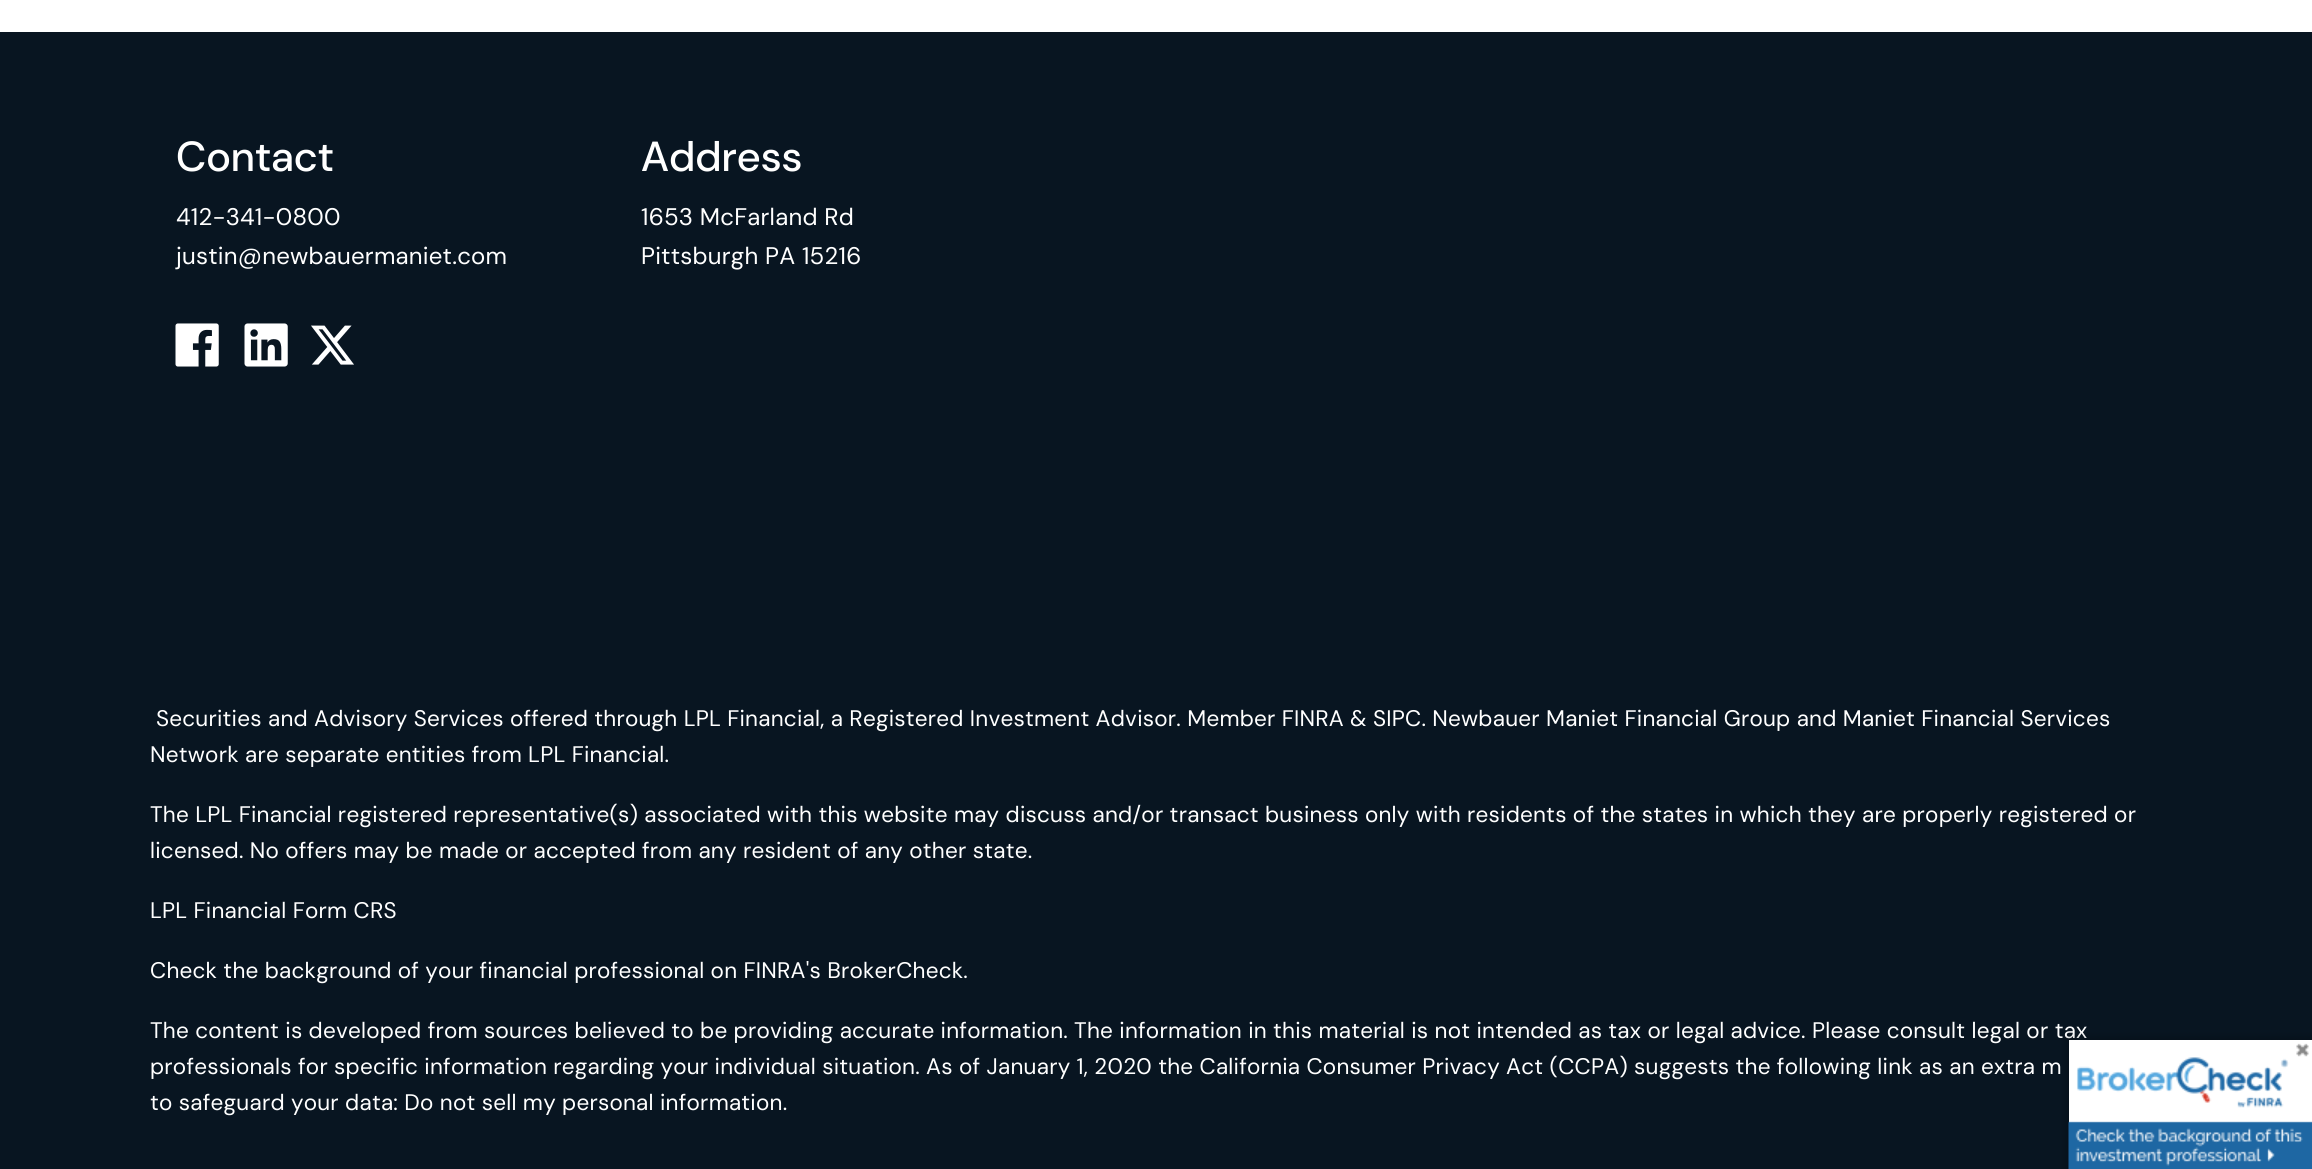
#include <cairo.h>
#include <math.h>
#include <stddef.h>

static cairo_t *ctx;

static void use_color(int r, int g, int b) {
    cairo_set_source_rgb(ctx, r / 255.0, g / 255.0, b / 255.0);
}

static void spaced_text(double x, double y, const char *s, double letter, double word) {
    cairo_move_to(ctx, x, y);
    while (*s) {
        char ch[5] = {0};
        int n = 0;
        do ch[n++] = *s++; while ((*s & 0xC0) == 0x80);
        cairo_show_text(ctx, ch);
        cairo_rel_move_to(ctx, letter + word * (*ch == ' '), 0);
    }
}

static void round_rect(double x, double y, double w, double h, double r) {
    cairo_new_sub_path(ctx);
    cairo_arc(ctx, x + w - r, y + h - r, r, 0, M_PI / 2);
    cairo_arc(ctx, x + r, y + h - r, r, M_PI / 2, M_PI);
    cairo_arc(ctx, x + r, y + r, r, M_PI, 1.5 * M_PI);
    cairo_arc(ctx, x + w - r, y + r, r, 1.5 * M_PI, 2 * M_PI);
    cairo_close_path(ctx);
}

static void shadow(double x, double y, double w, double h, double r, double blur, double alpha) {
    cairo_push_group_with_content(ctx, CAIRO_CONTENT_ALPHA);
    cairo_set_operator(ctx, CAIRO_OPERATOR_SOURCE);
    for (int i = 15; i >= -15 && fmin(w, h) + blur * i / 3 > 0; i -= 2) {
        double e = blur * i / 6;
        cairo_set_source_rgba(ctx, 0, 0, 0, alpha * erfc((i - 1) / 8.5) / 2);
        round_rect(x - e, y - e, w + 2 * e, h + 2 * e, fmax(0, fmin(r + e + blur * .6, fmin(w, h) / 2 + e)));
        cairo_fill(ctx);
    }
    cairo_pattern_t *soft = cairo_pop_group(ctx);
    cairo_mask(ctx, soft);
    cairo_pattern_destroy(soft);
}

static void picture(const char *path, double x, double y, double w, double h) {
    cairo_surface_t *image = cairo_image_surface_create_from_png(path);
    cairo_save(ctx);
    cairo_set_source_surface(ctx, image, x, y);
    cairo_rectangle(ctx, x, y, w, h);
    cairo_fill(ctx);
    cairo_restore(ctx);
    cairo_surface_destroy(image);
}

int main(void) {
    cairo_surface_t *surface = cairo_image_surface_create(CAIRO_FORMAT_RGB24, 2312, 1169);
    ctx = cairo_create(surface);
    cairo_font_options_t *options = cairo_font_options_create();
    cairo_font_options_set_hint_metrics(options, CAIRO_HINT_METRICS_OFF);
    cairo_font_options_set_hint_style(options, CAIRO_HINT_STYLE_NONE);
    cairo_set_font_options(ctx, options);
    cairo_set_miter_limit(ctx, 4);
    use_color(255, 255, 255);
    cairo_paint(ctx);
    use_color(8, 21, 33);
    cairo_rectangle(ctx, 0, 32, 2312, 1137);
    cairo_fill(ctx);
    cairo_select_font_face(ctx, "DM Sans Medium", CAIRO_FONT_SLANT_NORMAL, CAIRO_FONT_WEIGHT_NORMAL);
    cairo_set_font_size(ctx, 42);
    use_color(255, 255, 255);
    cairo_move_to(ctx, 176, 171);
    cairo_show_text(ctx, "Contact");
    cairo_select_font_face(ctx, "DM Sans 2", CAIRO_FONT_SLANT_NORMAL, CAIRO_FONT_WEIGHT_NORMAL);
    cairo_set_font_size(ctx, 24);
    spaced_text(176, 225, "412-341-0800", 0.22, 0);
    spaced_text(176, 264, "justin@newbauermaniet.com", 0.22, 0);
    picture("img1.png", 175, 323, 44, 44);
    picture("img2.png", 244, 323, 44, 44);
    picture("img3.png", 311, 325, 43, 40);
    cairo_select_font_face(ctx, "DM Sans Medium", CAIRO_FONT_SLANT_NORMAL, CAIRO_FONT_WEIGHT_NORMAL);
    cairo_set_font_size(ctx, 42);
    cairo_move_to(ctx, 641, 171);
    cairo_show_text(ctx, "Address");
    cairo_select_font_face(ctx, "DM Sans 2", CAIRO_FONT_SLANT_NORMAL, CAIRO_FONT_WEIGHT_NORMAL);
    cairo_set_font_size(ctx, 24);
    spaced_text(641, 225, "1653 McFarland Rd", 0.22, 0);
    spaced_text(641, 264, "Pittsburgh PA 15216", 0.22, 0);
    cairo_select_font_face(ctx, "DM Sans", CAIRO_FONT_SLANT_NORMAL, CAIRO_FONT_WEIGHT_NORMAL);
    cairo_set_font_size(ctx, 22.5);
    spaced_text(156, 726, "Securities and Advisory Services offered through LPL Financial, a Registered Investment Advisor. Member FINRA & SIPC. Newbauer Maniet Financial Group and Maniet Financial Services", 0.22, 0);
    spaced_text(150, 762, "Network are separate entities from LPL Financial.", 0.22, 0);
    spaced_text(150, 822, "The LPL Financial registered representative(s) associated with this website may discuss and/or transact business only with residents of the states in which they are properly registered or", 0.22, 0);
    spaced_text(150, 858, "licensed. No offers may be made or accepted from any resident of any other state.", 0.22, 0);
    spaced_text(150, 918, "LPL Financial Form CRS", 0.22, 0);
    spaced_text(150, 978, "Check the background of your financial professional on FINRA's BrokerCheck.", 0.22, 0);
    spaced_text(150, 1038, "The content is developed from sources believed to be providing accurate information. The information in this material is not intended as tax or legal advice. Please consult legal or tax", 0.22, 0);
    spaced_text(150, 1074, "professionals for specific information regarding your individual situation. As of January 1, 2020 the California Consumer Privacy Act (CCPA) suggests the following link as an extra m", 0.22, 0);
    spaced_text(150, 1110, "to safeguard your data: Do not sell my personal information.", 0.22, 0);
    cairo_rectangle(ctx, 2069, 1040, 243, 83);
    cairo_fill(ctx);
    cairo_save(ctx);
    cairo_set_fill_rule(ctx, CAIRO_FILL_RULE_EVEN_ODD);
    cairo_new_path(ctx);
    cairo_move_to(ctx, 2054, 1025);
    cairo_line_to(ctx, 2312, 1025);
    cairo_line_to(ctx, 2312, 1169);
    cairo_line_to(ctx, 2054, 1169);
    cairo_close_path(ctx);
    cairo_move_to(ctx, 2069, 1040);
    cairo_line_to(ctx, 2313, 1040);
    cairo_line_to(ctx, 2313, 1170);
    cairo_line_to(ctx, 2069, 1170);
    cairo_close_path(ctx);
    cairo_clip(ctx);
    use_color(0, 0, 0);
    shadow(2067, 1038, 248, 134, 0, 4, 0.25);
    cairo_restore(ctx);
    picture("img4.png", 2068, 1043, 244, 126);
    cairo_surface_write_to_png(surface, "result.png");
    cairo_font_options_destroy(options);
    cairo_destroy(ctx);
    cairo_surface_destroy(surface);
    return 0;
}
